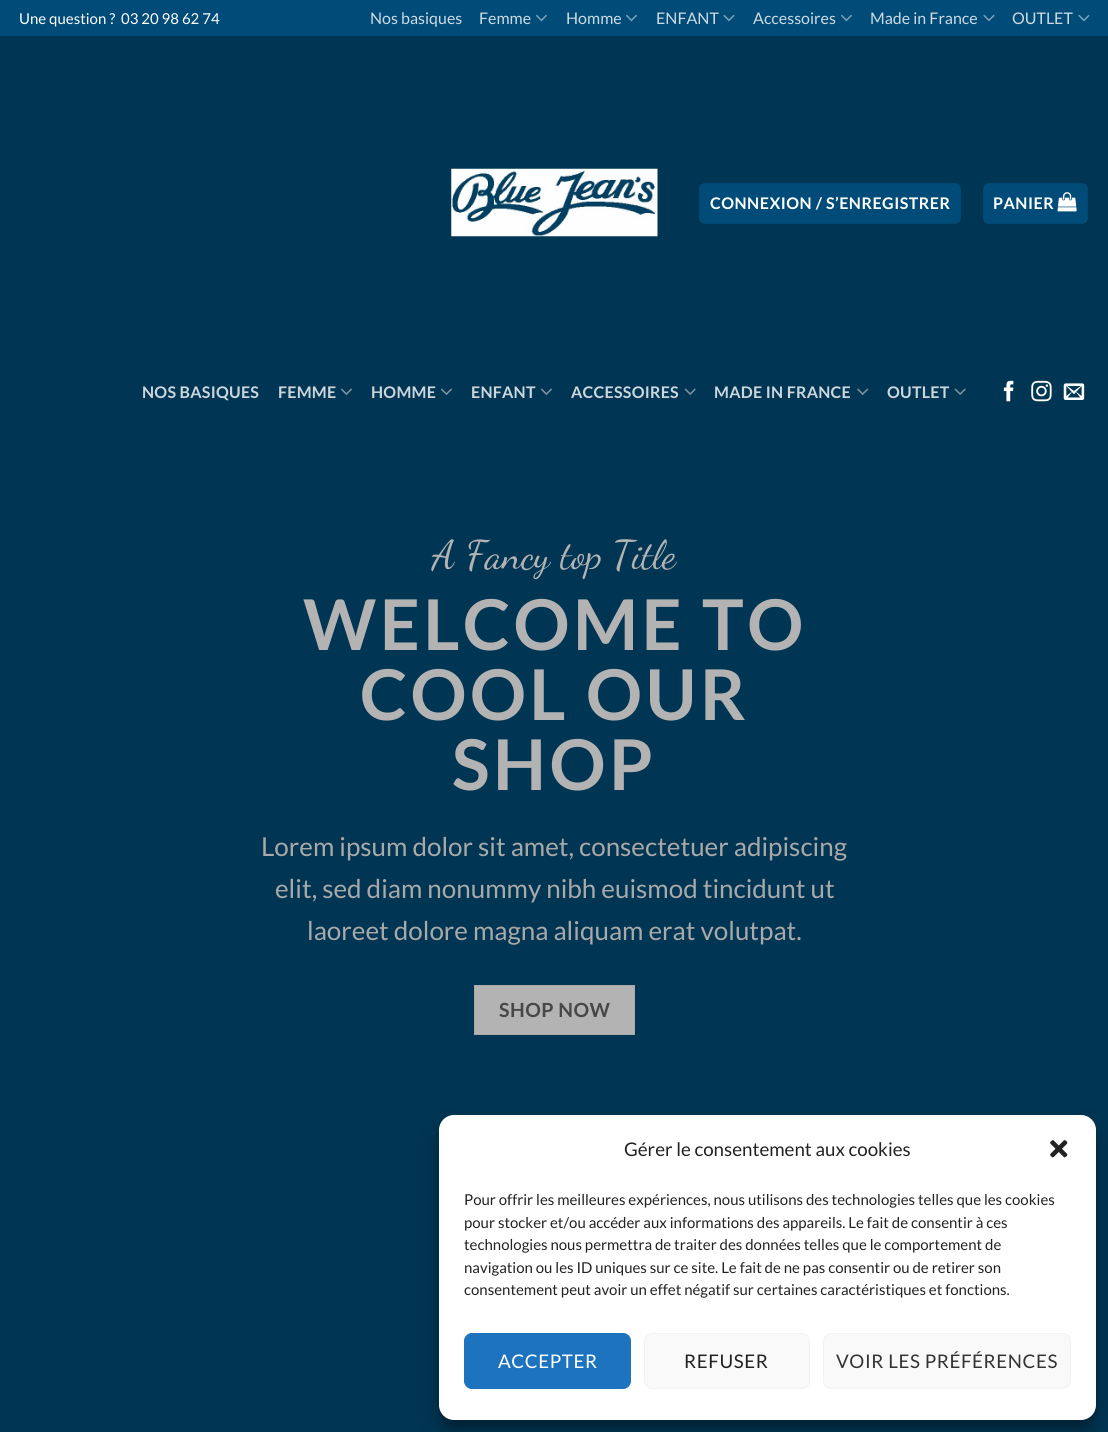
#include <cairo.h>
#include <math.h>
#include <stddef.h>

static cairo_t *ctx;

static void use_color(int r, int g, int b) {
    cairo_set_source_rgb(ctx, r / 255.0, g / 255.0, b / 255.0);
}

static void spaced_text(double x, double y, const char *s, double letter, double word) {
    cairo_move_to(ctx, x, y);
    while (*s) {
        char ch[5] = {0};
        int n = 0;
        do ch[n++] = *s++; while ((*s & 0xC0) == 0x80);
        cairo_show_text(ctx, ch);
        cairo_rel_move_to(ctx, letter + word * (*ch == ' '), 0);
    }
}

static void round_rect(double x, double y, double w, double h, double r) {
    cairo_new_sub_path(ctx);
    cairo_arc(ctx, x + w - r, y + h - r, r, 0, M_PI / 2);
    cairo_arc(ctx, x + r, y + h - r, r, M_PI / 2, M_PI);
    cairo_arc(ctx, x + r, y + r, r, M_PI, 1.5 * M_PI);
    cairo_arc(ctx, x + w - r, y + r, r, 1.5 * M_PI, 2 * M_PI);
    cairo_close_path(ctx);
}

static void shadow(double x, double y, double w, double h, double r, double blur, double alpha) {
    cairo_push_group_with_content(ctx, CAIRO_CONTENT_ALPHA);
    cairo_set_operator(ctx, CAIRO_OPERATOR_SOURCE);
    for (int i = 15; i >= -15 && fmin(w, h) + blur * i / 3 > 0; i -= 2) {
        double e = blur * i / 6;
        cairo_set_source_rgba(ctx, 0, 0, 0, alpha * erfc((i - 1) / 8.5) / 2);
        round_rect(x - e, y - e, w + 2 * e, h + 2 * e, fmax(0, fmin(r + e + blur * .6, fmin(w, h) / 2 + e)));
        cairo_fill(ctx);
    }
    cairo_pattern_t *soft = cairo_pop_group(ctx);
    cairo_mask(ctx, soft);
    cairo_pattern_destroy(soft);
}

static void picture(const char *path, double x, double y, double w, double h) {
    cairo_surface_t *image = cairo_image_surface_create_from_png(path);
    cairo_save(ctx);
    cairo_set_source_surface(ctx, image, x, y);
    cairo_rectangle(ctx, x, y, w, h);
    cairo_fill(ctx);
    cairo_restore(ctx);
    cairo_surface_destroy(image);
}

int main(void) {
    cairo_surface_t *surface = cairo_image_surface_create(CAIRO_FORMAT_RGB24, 1108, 1432);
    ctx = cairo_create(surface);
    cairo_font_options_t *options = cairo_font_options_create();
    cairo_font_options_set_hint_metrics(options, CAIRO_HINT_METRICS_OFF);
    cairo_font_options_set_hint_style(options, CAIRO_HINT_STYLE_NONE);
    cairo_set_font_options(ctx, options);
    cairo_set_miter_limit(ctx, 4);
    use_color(0, 53, 83);
    cairo_paint(ctx);
    use_color(0, 75, 119);
    cairo_rectangle(ctx, 0, 0, 1108, 36);
    cairo_fill(ctx);
    cairo_select_font_face(ctx, "Lato", CAIRO_FONT_SLANT_NORMAL, CAIRO_FONT_WEIGHT_NORMAL);
    cairo_set_font_size(ctx, 15);
    use_color(255, 255, 255);
    cairo_move_to(ctx, 19, 24);
    cairo_show_text(ctx, "Une question ?");
    cairo_move_to(ctx, 121, 24);
    cairo_show_text(ctx, "03 20 98 62 74");
    cairo_set_font_size(ctx, 16);
    use_color(204, 219, 228);
    cairo_move_to(ctx, 370, 24);
    cairo_show_text(ctx, "Nos basiques");
    cairo_move_to(ctx, 479, 24);
    cairo_show_text(ctx, "Femme");
    picture("img1.png", 536, 14, 11, 8);
    cairo_move_to(ctx, 566, 24);
    cairo_show_text(ctx, "Homme");
    picture("img1.png", 626, 14, 11, 8);
    cairo_move_to(ctx, 656, 24);
    cairo_show_text(ctx, "ENFANT");
    picture("img2.png", 723, 14, 12, 8);
    cairo_move_to(ctx, 753, 24);
    cairo_show_text(ctx, "Accessoires");
    picture("img1.png", 841, 14, 11, 8);
    cairo_move_to(ctx, 870, 24);
    cairo_show_text(ctx, "Made in France");
    picture("img2.png", 983, 14, 12, 8);
    cairo_move_to(ctx, 1012, 24);
    cairo_show_text(ctx, "OUTLET");
    picture("img2.png", 1078, 14, 12, 8);
    picture("img3.png", 451, 168, 207, 69);
    use_color(0, 75, 119);
    round_rect(699, 183, 262, 41, 6);
    cairo_fill(ctx);
    cairo_rectangle(ctx, 699.5, 183.5, 261, 40);
    cairo_set_source_rgba(ctx, 0, 0, 0, 0.05);
    cairo_set_line_width(ctx, 1);
    cairo_stroke(ctx);
    cairo_select_font_face(ctx, "Lato", CAIRO_FONT_SLANT_NORMAL, CAIRO_FONT_WEIGHT_BOLD);
    use_color(255, 255, 255);
    spaced_text(710, 209, "CONNEXION / S’ENREGISTRER", 0.5, 0);
    use_color(0, 75, 119);
    round_rect(983, 183, 105, 41, 6);
    cairo_fill(ctx);
    cairo_rectangle(ctx, 983.5, 183.5, 104, 40);
    cairo_set_source_rgba(ctx, 0, 0, 0, 0.05);
    cairo_stroke(ctx);
    use_color(255, 255, 255);
    spaced_text(993, 209, "PANIER", 0.5, 0);
    picture("img4.png", 1057, 192, 20, 20);
    use_color(204, 215, 221);
    spaced_text(142, 398, "NOS BASIQUES", 0.25, 0);
    spaced_text(278, 398, "FEMME", 0.25, 0);
    picture("img5.png", 341, 388, 11, 7);
    spaced_text(371, 398, "HOMME", 0.25, 0);
    picture("img5.png", 441, 388, 11, 7);
    spaced_text(471, 398, "ENFANT", 0.25, 0);
    picture("img5.png", 541, 388, 11, 7);
    spaced_text(571, 398, "ACCESSOIRES", 0.25, 0);
    picture("img6.png", 684, 388, 12, 7);
    spaced_text(714, 398, "MADE IN FRANCE", 0.25, 0);
    picture("img7.png", 857, 388, 12, 7);
    spaced_text(887, 398, "OUTLET", 0.25, 0);
    picture("img6.png", 954, 388, 12, 7);
    picture("img8.png", 1003, 380, 11, 22);
    picture("img9.png", 1031, 380, 21, 22);
    picture("img10.png", 1063, 383, 22, 17);
    cairo_select_font_face(ctx, "Dancing Script", CAIRO_FONT_SLANT_NORMAL, CAIRO_FONT_WEIGHT_NORMAL);
    cairo_set_font_size(ctx, 40);
    use_color(179, 179, 179);
    cairo_move_to(ctx, 432, 568);
    cairo_show_text(ctx, "A Fancy top Title");
    cairo_select_font_face(ctx, "Lato", CAIRO_FONT_SLANT_NORMAL, CAIRO_FONT_WEIGHT_BOLD);
    cairo_set_font_size(ctx, 70);
    spaced_text(303, 650, "WELCOME TO", 3.5, 0);
    spaced_text(360, 720, "COOL OUR", 3.5, 0);
    spaced_text(452, 790, "SHOP", 3.5, 0);
    cairo_select_font_face(ctx, "Lato", CAIRO_FONT_SLANT_NORMAL, CAIRO_FONT_WEIGHT_NORMAL);
    cairo_set_font_size(ctx, 26);
    use_color(169, 169, 169);
    cairo_move_to(ctx, 261, 856);
    cairo_show_text(ctx, "Lorem ipsum dolor sit amet, consectetuer adipiscing");
    cairo_move_to(ctx, 275, 898);
    cairo_show_text(ctx, "elit, sed diam nonummy nibh euismod tincidunt ut");
    cairo_move_to(ctx, 307, 940);
    cairo_show_text(ctx, "laoreet dolore magna aliquam erat volutpat.");
    use_color(179, 179, 179);
    cairo_rectangle(ctx, 474.5, 985.5, 160, 49);
    cairo_fill_preserve(ctx);
    use_color(169, 169, 169);
    cairo_stroke(ctx);
    cairo_select_font_face(ctx, "Lato", CAIRO_FONT_SLANT_NORMAL, CAIRO_FONT_WEIGHT_BOLD);
    cairo_set_font_size(ctx, 19.5);
    use_color(71, 71, 71);
    spaced_text(499, 1017, "SHOP NOW", 0.5, 0);
    use_color(0, 0, 0);
    shadow(439, 1123, 657, 305, 15, 4, 0.23);
    shadow(439, 1128, 657, 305, 15, 12.5, 0.19);
    use_color(255, 255, 255);
    round_rect(439, 1115, 657, 305, 15);
    cairo_fill(ctx);
    cairo_select_font_face(ctx, "Lato", CAIRO_FONT_SLANT_NORMAL, CAIRO_FONT_WEIGHT_NORMAL);
    cairo_set_font_size(ctx, 18.75);
    use_color(34, 34, 34);
    cairo_move_to(ctx, 624, 1156);
    cairo_show_text(ctx, "Gérer le consentement aux cookies");
    picture("img11.png", 1050, 1140, 18, 18);
    cairo_set_font_size(ctx, 15);
    cairo_move_to(ctx, 464, 1205);
    cairo_show_text(ctx, "Pour offrir les meilleures expériences, nous utilisons des technologies telles que les cookies");
    cairo_move_to(ctx, 464, 1228);
    cairo_show_text(ctx, "pour stocker et/ou accéder aux informations des appareils. Le fait de consentir à ces");
    cairo_move_to(ctx, 464, 1250);
    cairo_show_text(ctx, "technologies nous permettra de traiter des données telles que le comportement de");
    cairo_move_to(ctx, 464, 1273);
    cairo_show_text(ctx, "navigation ou les ID uniques sur ce site. Le fait de ne pas consentir ou de retirer son");
    cairo_move_to(ctx, 464, 1295);
    cairo_show_text(ctx, "consentement peut avoir un effet négatif sur certaines caractéristiques et fonctions.");
    use_color(30, 115, 190);
    round_rect(464.5, 1333.5, 166, 55, 7.5);
    cairo_fill_preserve(ctx);
    cairo_stroke(ctx);
    cairo_set_font_size(ctx, 18.75);
    use_color(255, 255, 255);
    spaced_text(498, 1368, "ACCEPTER", 0.6, 0);
    use_color(249, 249, 249);
    round_rect(644.5, 1333.5, 165, 55, 7.5);
    cairo_fill_preserve(ctx);
    use_color(242, 242, 242);
    cairo_stroke(ctx);
    use_color(34, 34, 34);
    spaced_text(684, 1368, "REFUSER", 0.6, 0);
    use_color(249, 249, 249);
    round_rect(823.5, 1333.5, 247, 55, 7.5);
    cairo_fill_preserve(ctx);
    use_color(242, 242, 242);
    cairo_stroke(ctx);
    use_color(51, 51, 51);
    spaced_text(836, 1368, "VOIR LES PRÉFÉRENCES", 0.6, 0);
    cairo_surface_write_to_png(surface, "result.png");
    cairo_font_options_destroy(options);
    cairo_destroy(ctx);
    cairo_surface_destroy(surface);
    return 0;
}
